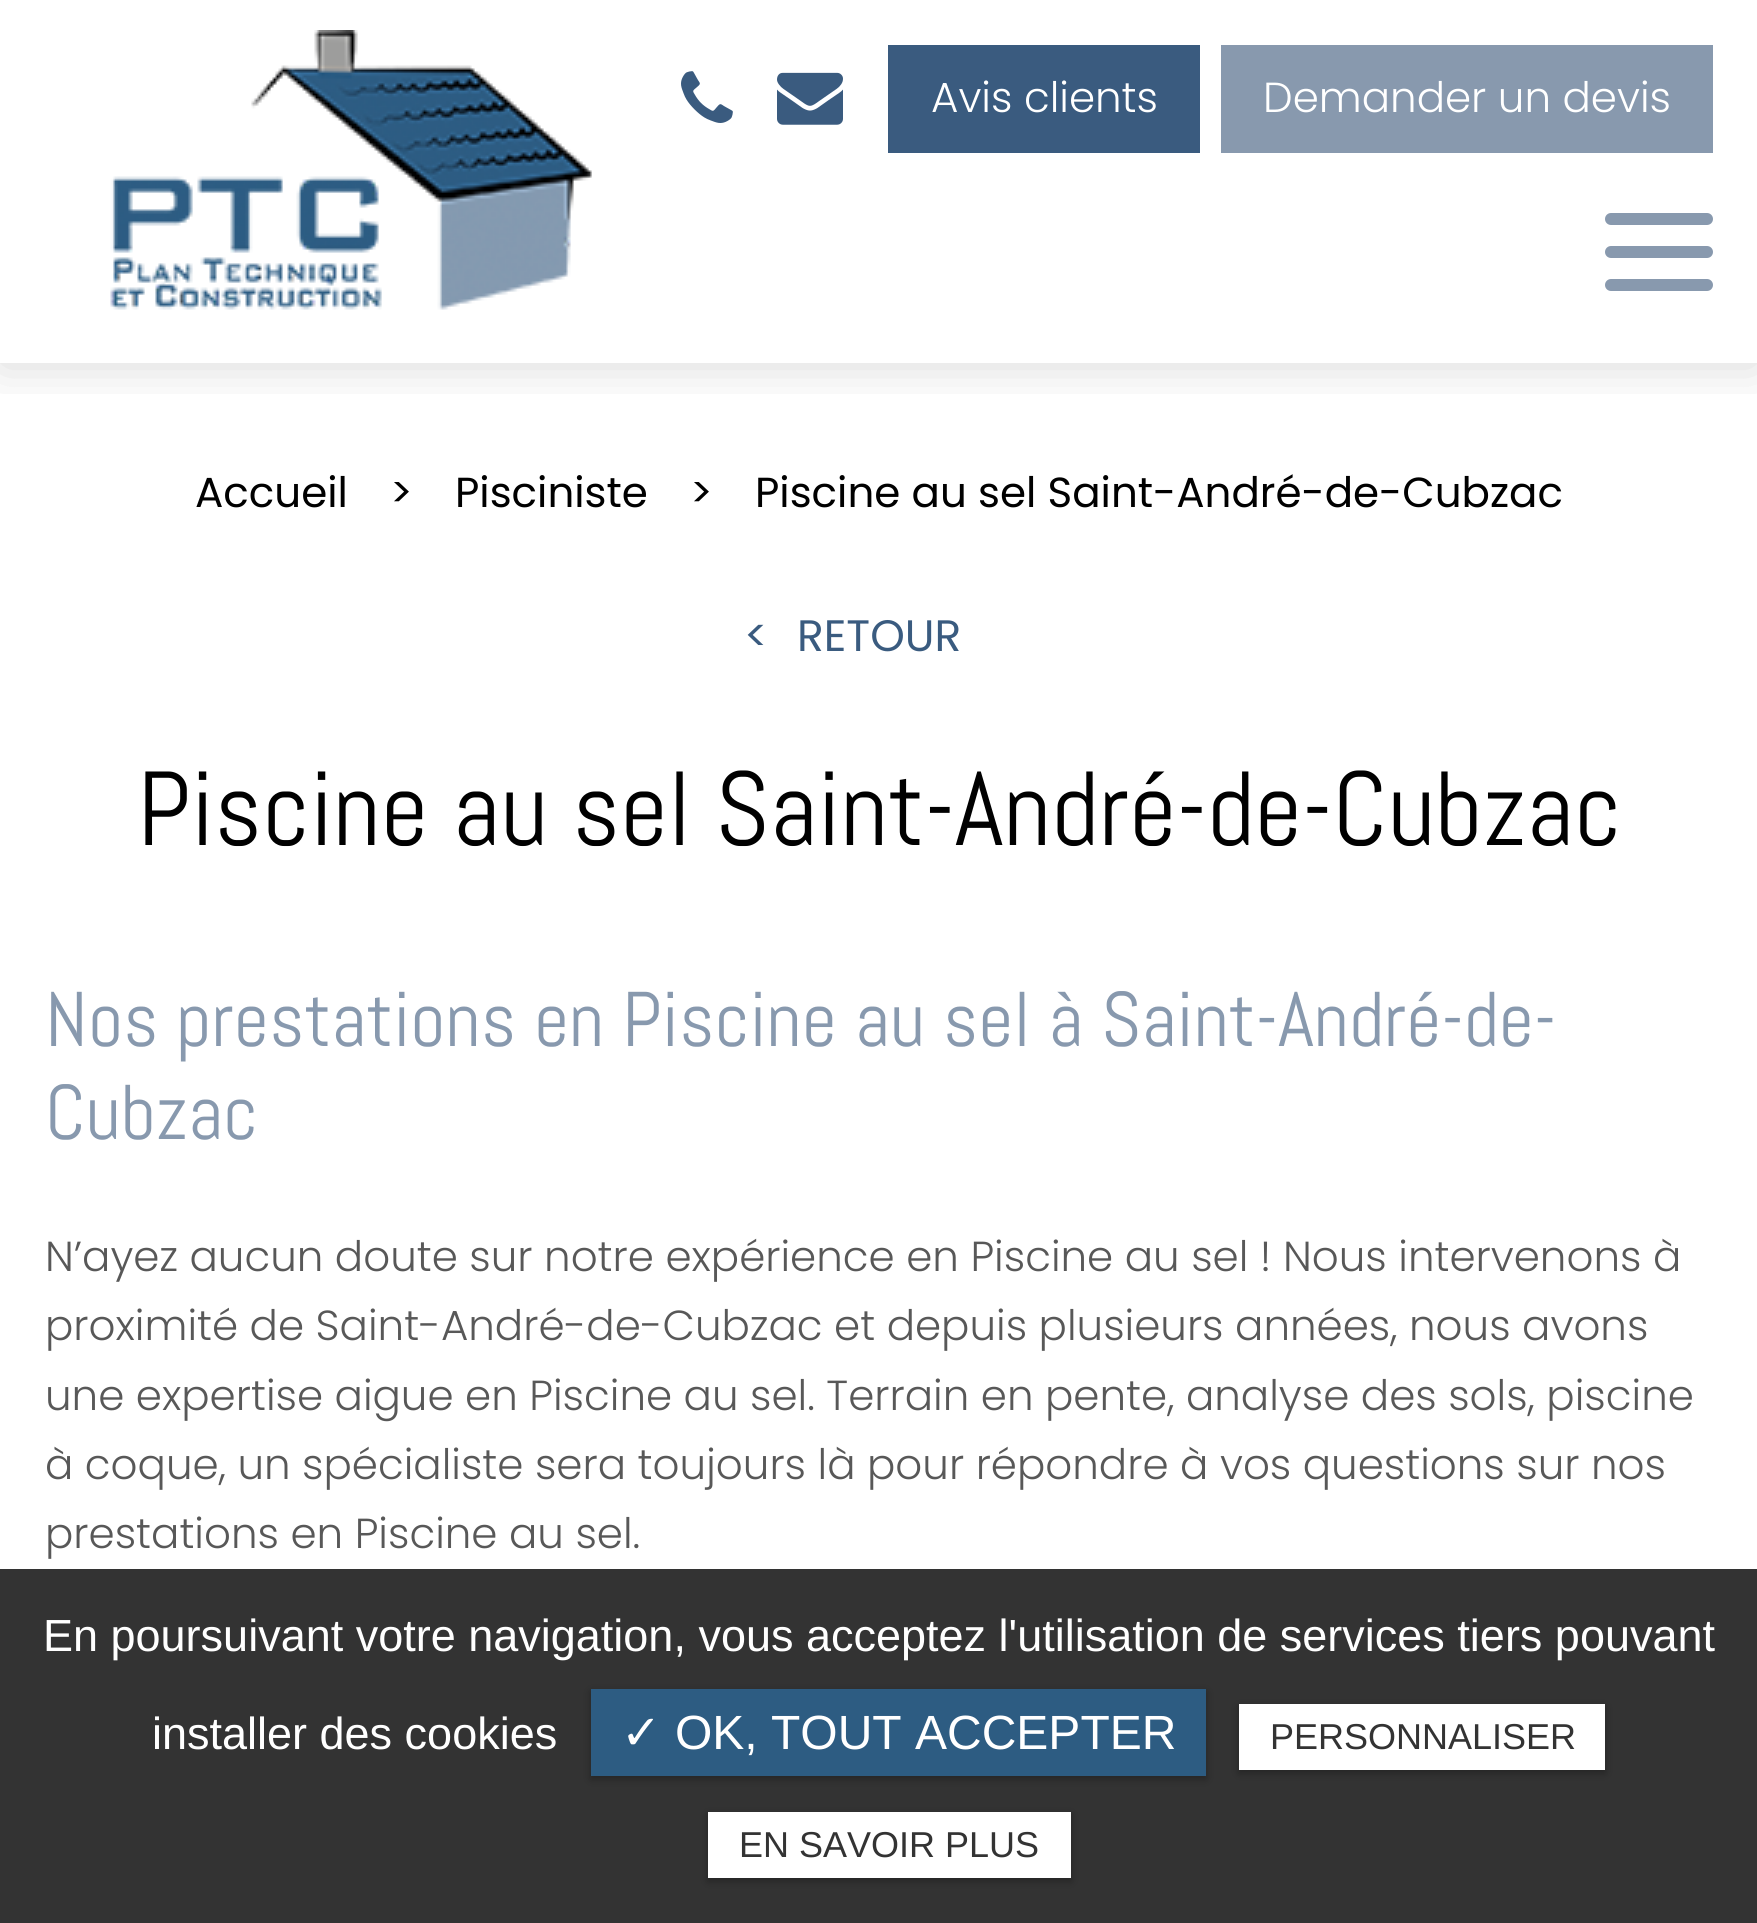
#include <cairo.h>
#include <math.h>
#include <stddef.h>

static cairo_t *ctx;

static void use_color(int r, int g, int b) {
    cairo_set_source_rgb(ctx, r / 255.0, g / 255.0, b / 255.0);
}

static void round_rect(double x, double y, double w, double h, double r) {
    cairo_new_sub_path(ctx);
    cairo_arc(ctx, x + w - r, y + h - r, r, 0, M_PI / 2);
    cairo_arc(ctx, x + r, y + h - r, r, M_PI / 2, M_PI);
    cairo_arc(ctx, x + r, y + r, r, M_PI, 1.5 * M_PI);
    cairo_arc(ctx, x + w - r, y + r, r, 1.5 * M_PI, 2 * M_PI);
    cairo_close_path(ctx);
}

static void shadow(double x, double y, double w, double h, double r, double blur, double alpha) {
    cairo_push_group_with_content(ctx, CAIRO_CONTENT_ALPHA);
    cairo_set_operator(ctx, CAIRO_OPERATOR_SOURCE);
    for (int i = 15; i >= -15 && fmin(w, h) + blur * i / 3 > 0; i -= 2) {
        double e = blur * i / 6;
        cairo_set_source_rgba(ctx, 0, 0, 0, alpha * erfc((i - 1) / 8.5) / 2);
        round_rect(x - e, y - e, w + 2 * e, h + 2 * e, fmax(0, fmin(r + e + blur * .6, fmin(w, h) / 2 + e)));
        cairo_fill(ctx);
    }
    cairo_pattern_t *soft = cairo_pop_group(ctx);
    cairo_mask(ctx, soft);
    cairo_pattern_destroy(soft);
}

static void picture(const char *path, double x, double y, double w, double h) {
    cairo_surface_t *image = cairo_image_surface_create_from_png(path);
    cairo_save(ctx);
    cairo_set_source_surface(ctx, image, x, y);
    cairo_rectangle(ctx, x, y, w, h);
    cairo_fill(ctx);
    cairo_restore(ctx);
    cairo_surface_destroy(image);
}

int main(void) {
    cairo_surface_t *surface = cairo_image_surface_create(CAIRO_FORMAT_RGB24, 1757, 1923);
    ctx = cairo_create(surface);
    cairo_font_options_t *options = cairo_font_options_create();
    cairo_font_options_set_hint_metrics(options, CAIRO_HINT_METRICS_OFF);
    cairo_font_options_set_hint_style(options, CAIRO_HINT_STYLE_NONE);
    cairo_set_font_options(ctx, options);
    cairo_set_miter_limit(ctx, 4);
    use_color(255, 255, 255);
    cairo_paint(ctx);
    cairo_save(ctx);
    cairo_rectangle(ctx, 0, 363, 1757, 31);
    cairo_clip(ctx);
    use_color(0, 0, 0);
    shadow(0, 3, 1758, 363, 0, 25.5, 0.15);
    cairo_restore(ctx);
    picture("img1.png", 110, 30, 482, 280);
    picture("img2.png", 681, 71, 52, 52);
    picture("img3.png", 777, 72, 66, 53);
    use_color(58, 91, 127);
    cairo_rectangle(ctx, 888, 45, 312, 108);
    cairo_fill(ctx);
    cairo_select_font_face(ctx, "Poppins Light", CAIRO_FONT_SLANT_NORMAL, CAIRO_FONT_WEIGHT_NORMAL);
    cairo_set_font_size(ctx, 42);
    use_color(255, 255, 255);
    cairo_move_to(ctx, 931, 112);
    cairo_show_text(ctx, "Avis clients");
    use_color(136, 153, 174);
    cairo_rectangle(ctx, 1221, 45, 492, 108);
    cairo_fill(ctx);
    use_color(255, 255, 255);
    cairo_move_to(ctx, 1263, 112);
    cairo_show_text(ctx, "Demander un devis");
    use_color(136, 153, 174);
    round_rect(1605, 213, 108, 12, 6);
    cairo_fill(ctx);
    round_rect(1605, 246, 108, 12, 6);
    cairo_fill(ctx);
    round_rect(1605, 279, 108, 12, 6);
    cairo_fill(ctx);
    cairo_select_font_face(ctx, "Poppins", CAIRO_FONT_SLANT_NORMAL, CAIRO_FONT_WEIGHT_NORMAL);
    use_color(0, 0, 0);
    cairo_move_to(ctx, 195, 507);
    cairo_show_text(ctx, "Accueil");
    cairo_move_to(ctx, 390, 507);
    cairo_show_text(ctx, ">");
    cairo_move_to(ctx, 455, 507);
    cairo_show_text(ctx, "Pisciniste");
    cairo_move_to(ctx, 690, 507);
    cairo_show_text(ctx, ">");
    cairo_move_to(ctx, 755, 507);
    cairo_show_text(ctx, "Piscine au sel Saint-André-de-Cubzac");
    cairo_set_font_size(ctx, 44);
    use_color(58, 91, 127);
    cairo_move_to(ctx, 744, 651);
    cairo_show_text(ctx, "<");
    cairo_move_to(ctx, 797, 651);
    cairo_show_text(ctx, "RETOUR");
    cairo_select_font_face(ctx, "Abel", CAIRO_FONT_SLANT_NORMAL, CAIRO_FONT_WEIGHT_NORMAL);
    cairo_set_font_size(ctx, 105);
    use_color(0, 0, 0);
    cairo_move_to(ctx, 137, 845);
    cairo_show_text(ctx, "Piscine au sel Saint-André-de-Cubzac");
    cairo_set_font_size(ctx, 77.4);
    use_color(136, 153, 174);
    cairo_move_to(ctx, 45, 1046);
    cairo_show_text(ctx, "Nos prestations en Piscine au sel à Saint-André-de-");
    cairo_move_to(ctx, 45, 1139);
    cairo_show_text(ctx, "Cubzac");
    cairo_select_font_face(ctx, "Poppins Light", CAIRO_FONT_SLANT_NORMAL, CAIRO_FONT_WEIGHT_NORMAL);
    cairo_set_font_size(ctx, 42);
    use_color(88, 88, 88);
    cairo_move_to(ctx, 45, 1271);
    cairo_show_text(ctx, "N’ayez aucun doute sur notre expérience en Piscine au sel ! Nous intervenons à");
    cairo_move_to(ctx, 45, 1340);
    cairo_show_text(ctx, "proximité de Saint-André-de-Cubzac et depuis plusieurs années, nous avons");
    cairo_move_to(ctx, 45, 1410);
    cairo_show_text(ctx, "une expertise aigue en Piscine au sel. Terrain en pente, analyse des sols, piscine");
    cairo_move_to(ctx, 45, 1479);
    cairo_show_text(ctx, "à coque, un spécialiste sera toujours là pour répondre à vos questions sur nos");
    cairo_move_to(ctx, 45, 1548);
    cairo_show_text(ctx, "prestations en Piscine au sel.");
    use_color(51, 51, 51);
    cairo_rectangle(ctx, 0, 1569, 1757, 354);
    cairo_fill(ctx);
    cairo_select_font_face(ctx, "Liberation Sans", CAIRO_FONT_SLANT_NORMAL, CAIRO_FONT_WEIGHT_NORMAL);
    cairo_set_font_size(ctx, 45);
    use_color(255, 255, 255);
    cairo_move_to(ctx, 43, 1651);
    cairo_show_text(ctx, "En poursuivant votre navigation, vous acceptez l'utilisation de services tiers pouvant");
    cairo_move_to(ctx, 152, 1749);
    cairo_show_text(ctx, "installer des cookies");
    use_color(0, 0, 0);
    shadow(591, 1692, 615, 87, 0, 4.5, 0.3);
    use_color(45, 92, 130);
    cairo_rectangle(ctx, 591, 1689, 615, 87);
    cairo_fill(ctx);
    cairo_select_font_face(ctx, "DejaVu Sans", CAIRO_FONT_SLANT_NORMAL, CAIRO_FONT_WEIGHT_NORMAL);
    cairo_set_font_size(ctx, 48);
    use_color(255, 255, 255);
    cairo_move_to(ctx, 621, 1749);
    cairo_show_text(ctx, "✓");
    cairo_select_font_face(ctx, "Liberation Sans", CAIRO_FONT_SLANT_NORMAL, CAIRO_FONT_WEIGHT_NORMAL);
    cairo_move_to(ctx, 675, 1749);
    cairo_show_text(ctx, "OK, TOUT ACCEPTER");
    use_color(0, 0, 0);
    shadow(1239, 1707, 366, 66, 0, 4.5, 0.3);
    use_color(255, 255, 255);
    cairo_rectangle(ctx, 1239, 1704, 366, 66);
    cairo_fill(ctx);
    cairo_set_font_size(ctx, 36);
    use_color(51, 51, 51);
    cairo_move_to(ctx, 1270, 1749);
    cairo_show_text(ctx, "PERSONNALISER");
    use_color(0, 0, 0);
    shadow(708, 1815, 363, 66, 0, 4.5, 0.3);
    use_color(255, 255, 255);
    cairo_rectangle(ctx, 708, 1812, 363, 66);
    cairo_fill(ctx);
    use_color(51, 51, 51);
    cairo_move_to(ctx, 739, 1857);
    cairo_show_text(ctx, "EN SAVOIR PLUS");
    cairo_surface_write_to_png(surface, "result.png");
    cairo_font_options_destroy(options);
    cairo_destroy(ctx);
    cairo_surface_destroy(surface);
    return 0;
}
